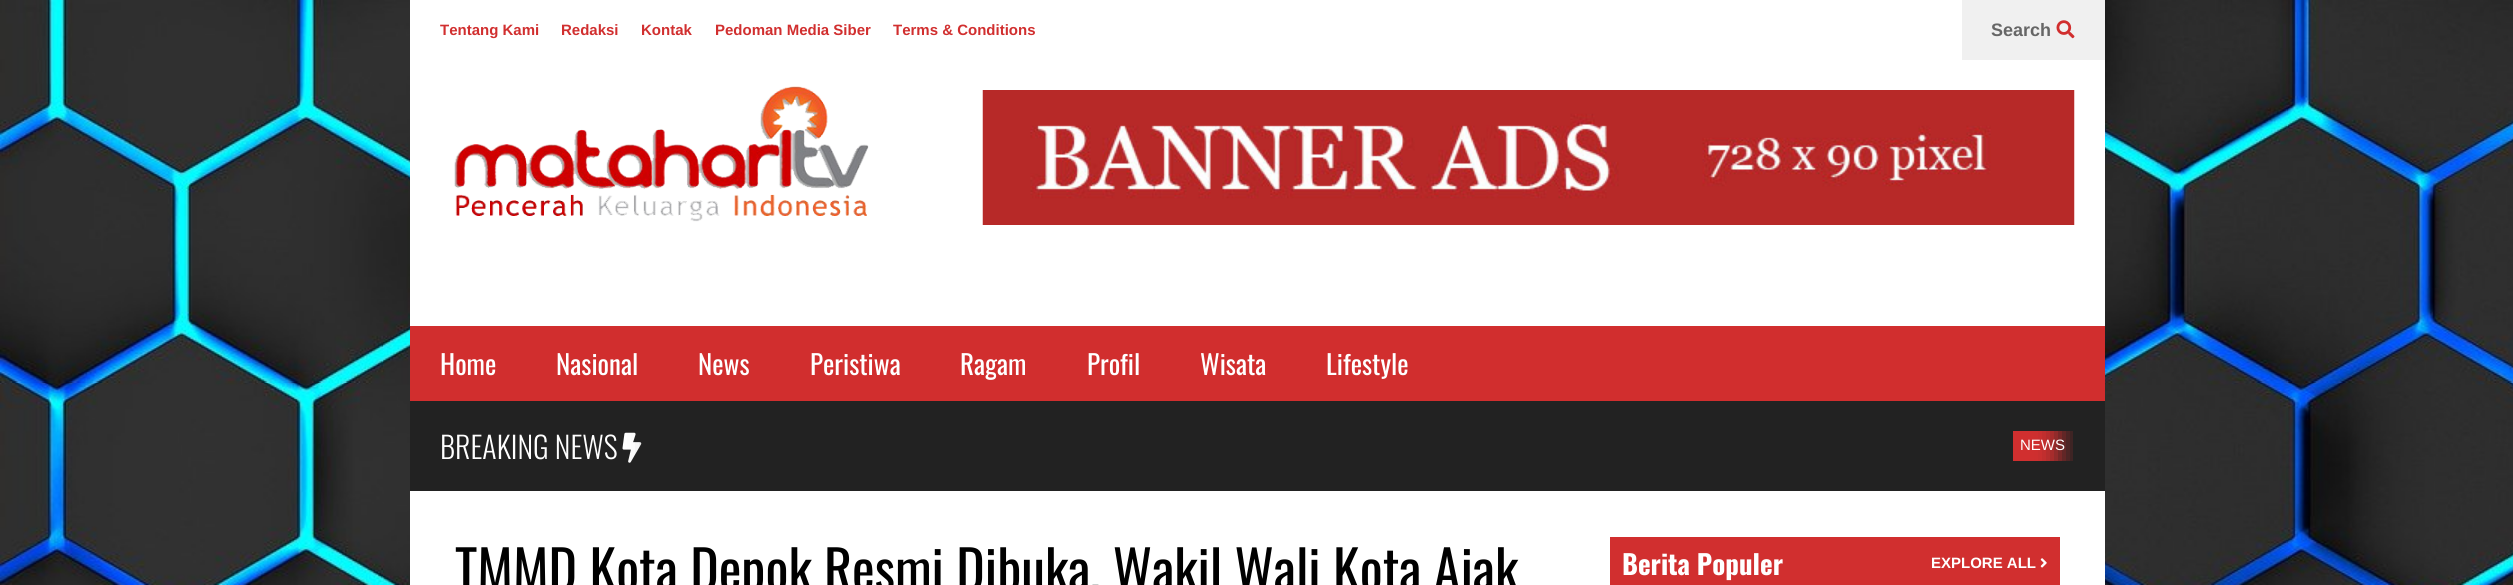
#include <cairo.h>
#include <math.h>
#include <stddef.h>

static cairo_t *ctx;

static void use_color(int r, int g, int b) {
    cairo_set_source_rgb(ctx, r / 255.0, g / 255.0, b / 255.0);
}

static void round_rect(double x, double y, double w, double h, double r) {
    cairo_new_sub_path(ctx);
    cairo_arc(ctx, x + w - r, y + h - r, r, 0, M_PI / 2);
    cairo_arc(ctx, x + r, y + h - r, r, M_PI / 2, M_PI);
    cairo_arc(ctx, x + r, y + r, r, M_PI, 1.5 * M_PI);
    cairo_arc(ctx, x + w - r, y + r, r, 1.5 * M_PI, 2 * M_PI);
    cairo_close_path(ctx);
}

static void shadow(double x, double y, double w, double h, double r, double blur, double alpha) {
    cairo_push_group_with_content(ctx, CAIRO_CONTENT_ALPHA);
    cairo_set_operator(ctx, CAIRO_OPERATOR_SOURCE);
    for (int i = 15; i >= -15 && fmin(w, h) + blur * i / 3 > 0; i -= 2) {
        double e = blur * i / 6;
        cairo_set_source_rgba(ctx, 0, 0, 0, alpha * erfc((i - 1) / 8.5) / 2);
        round_rect(x - e, y - e, w + 2 * e, h + 2 * e, fmax(0, fmin(r + e + blur * .6, fmin(w, h) / 2 + e)));
        cairo_fill(ctx);
    }
    cairo_pattern_t *soft = cairo_pop_group(ctx);
    cairo_mask(ctx, soft);
    cairo_pattern_destroy(soft);
}

static void picture(const char *path, double x, double y, double w, double h) {
    cairo_surface_t *image = cairo_image_surface_create_from_png(path);
    cairo_save(ctx);
    cairo_set_source_surface(ctx, image, x, y);
    cairo_rectangle(ctx, x, y, w, h);
    cairo_fill(ctx);
    cairo_restore(ctx);
    cairo_surface_destroy(image);
}

int main(void) {
    cairo_surface_t *surface = cairo_image_surface_create(CAIRO_FORMAT_RGB24, 2513, 585);
    ctx = cairo_create(surface);
    cairo_font_options_t *options = cairo_font_options_create();
    cairo_font_options_set_hint_metrics(options, CAIRO_HINT_METRICS_OFF);
    cairo_font_options_set_hint_style(options, CAIRO_HINT_STYLE_NONE);
    cairo_set_font_options(ctx, options);
    cairo_set_miter_limit(ctx, 4);
    use_color(255, 255, 255);
    cairo_paint(ctx);
    picture("img1.png", 0, 0, 2513, 585);
    use_color(255, 255, 255);
    cairo_rectangle(ctx, 410, 0, 1695, 326);
    cairo_fill(ctx);
    cairo_select_font_face(ctx, "Liberation Sans", CAIRO_FONT_SLANT_NORMAL, CAIRO_FONT_WEIGHT_BOLD);
    cairo_set_font_size(ctx, 15);
    use_color(209, 47, 47);
    cairo_move_to(ctx, 440, 35);
    cairo_show_text(ctx, "Tentang Kami");
    cairo_move_to(ctx, 561, 35);
    cairo_show_text(ctx, "Redaksi");
    cairo_move_to(ctx, 641, 35);
    cairo_show_text(ctx, "Kontak");
    cairo_move_to(ctx, 715, 35);
    cairo_show_text(ctx, "Pedoman Media Siber");
    cairo_move_to(ctx, 893, 35);
    cairo_show_text(ctx, "Terms & Conditions");
    use_color(240, 240, 240);
    cairo_rectangle(ctx, 1962, 0, 143, 60);
    cairo_fill(ctx);
    cairo_set_font_size(ctx, 18);
    use_color(102, 102, 102);
    cairo_move_to(ctx, 1991, 36);
    cairo_show_text(ctx, "Search");
    picture("img2.png", 2056, 20, 19, 19);
    picture("img3.png", 454, 86, 415, 136);
    picture("img4.png", 982, 90, 1093, 135);
    use_color(209, 46, 46);
    cairo_rectangle(ctx, 410, 326, 1695, 75);
    cairo_fill(ctx);
    cairo_select_font_face(ctx, "Oswald", CAIRO_FONT_SLANT_NORMAL, CAIRO_FONT_WEIGHT_NORMAL);
    cairo_set_font_size(ctx, 27);
    use_color(255, 255, 255);
    cairo_move_to(ctx, 440, 375);
    cairo_show_text(ctx, "Home");
    cairo_move_to(ctx, 556, 375);
    cairo_show_text(ctx, "Nasional");
    cairo_move_to(ctx, 698, 375);
    cairo_show_text(ctx, "News");
    cairo_move_to(ctx, 810, 375);
    cairo_show_text(ctx, "Peristiwa");
    cairo_move_to(ctx, 960, 375);
    cairo_show_text(ctx, "Ragam");
    cairo_move_to(ctx, 1087, 375);
    cairo_show_text(ctx, "Profil");
    cairo_move_to(ctx, 1200, 375);
    cairo_show_text(ctx, "Wisata");
    cairo_move_to(ctx, 1326, 375);
    cairo_show_text(ctx, "Lifestyle");
    use_color(34, 34, 34);
    cairo_rectangle(ctx, 410, 401, 1665, 90);
    cairo_fill(ctx);
    cairo_select_font_face(ctx, "Oswald Light", CAIRO_FONT_SLANT_NORMAL, CAIRO_FONT_WEIGHT_NORMAL);
    cairo_set_font_size(ctx, 30);
    use_color(255, 255, 255);
    cairo_move_to(ctx, 440, 459);
    cairo_show_text(ctx, "BREAKING NEWS");
    picture("img5.png", 622, 432, 20, 31);
    cairo_rectangle(ctx, 410, 491, 1695, 94);
    cairo_fill(ctx);
    cairo_save(ctx);
    cairo_rectangle(ctx, 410, 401, 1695, 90);
    cairo_clip(ctx);
    cairo_set_fill_rule(ctx, CAIRO_FILL_RULE_EVEN_ODD);
    cairo_new_path(ctx);
    cairo_move_to(ctx, 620, 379);
    cairo_line_to(ctx, 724, 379);
    cairo_line_to(ctx, 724, 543);
    cairo_line_to(ctx, 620, 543);
    cairo_close_path(ctx);
    cairo_move_to(ctx, 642, 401);
    cairo_line_to(ctx, 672, 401);
    cairo_line_to(ctx, 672, 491);
    cairo_line_to(ctx, 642, 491);
    cairo_close_path(ctx);
    cairo_clip(ctx);
    use_color(34, 34, 34);
    shadow(657, 416, 30, 90, 0, 12, 1);
    cairo_restore(ctx);
    use_color(209, 47, 47);
    cairo_rectangle(ctx, 2013, 431, 60, 30);
    cairo_fill(ctx);
    cairo_save(ctx);
    cairo_rectangle(ctx, 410, 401, 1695, 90);
    cairo_clip(ctx);
    use_color(34, 34, 34);
    shadow(2060, 386, 30, 90, 0, 12, 1);
    cairo_restore(ctx);
    use_color(34, 34, 34);
    cairo_rectangle(ctx, 2075, 401, 30, 90);
    cairo_fill(ctx);
    cairo_select_font_face(ctx, "Liberation Sans", CAIRO_FONT_SLANT_NORMAL, CAIRO_FONT_WEIGHT_NORMAL);
    cairo_set_font_size(ctx, 15);
    use_color(255, 255, 255);
    cairo_move_to(ctx, 2020, 450);
    cairo_show_text(ctx, "NEWS");
    cairo_select_font_face(ctx, "Oswald", CAIRO_FONT_SLANT_NORMAL, CAIRO_FONT_WEIGHT_NORMAL);
    cairo_set_font_size(ctx, 54);
    use_color(0, 0, 0);
    cairo_move_to(ctx, 455, 591);
    cairo_show_text(ctx, "TMMD Kota Depok Resmi Dibuka, Wakil Wali Kota Ajak");
    use_color(209, 47, 47);
    cairo_rectangle(ctx, 1610, 537, 450, 48);
    cairo_fill(ctx);
    cairo_select_font_face(ctx, "Oswald", CAIRO_FONT_SLANT_NORMAL, CAIRO_FONT_WEIGHT_BOLD);
    cairo_set_font_size(ctx, 27);
    use_color(255, 255, 255);
    cairo_move_to(ctx, 1622, 575);
    cairo_show_text(ctx, "Berita Populer");
    cairo_select_font_face(ctx, "Liberation Sans", CAIRO_FONT_SLANT_NORMAL, CAIRO_FONT_WEIGHT_BOLD);
    cairo_set_font_size(ctx, 15);
    cairo_move_to(ctx, 1931, 568);
    cairo_show_text(ctx, "EXPLORE ALL");
    picture("img6.png", 2040, 558, 7, 10);
    cairo_surface_write_to_png(surface, "result.png");
    cairo_font_options_destroy(options);
    cairo_destroy(ctx);
    cairo_surface_destroy(surface);
    return 0;
}
